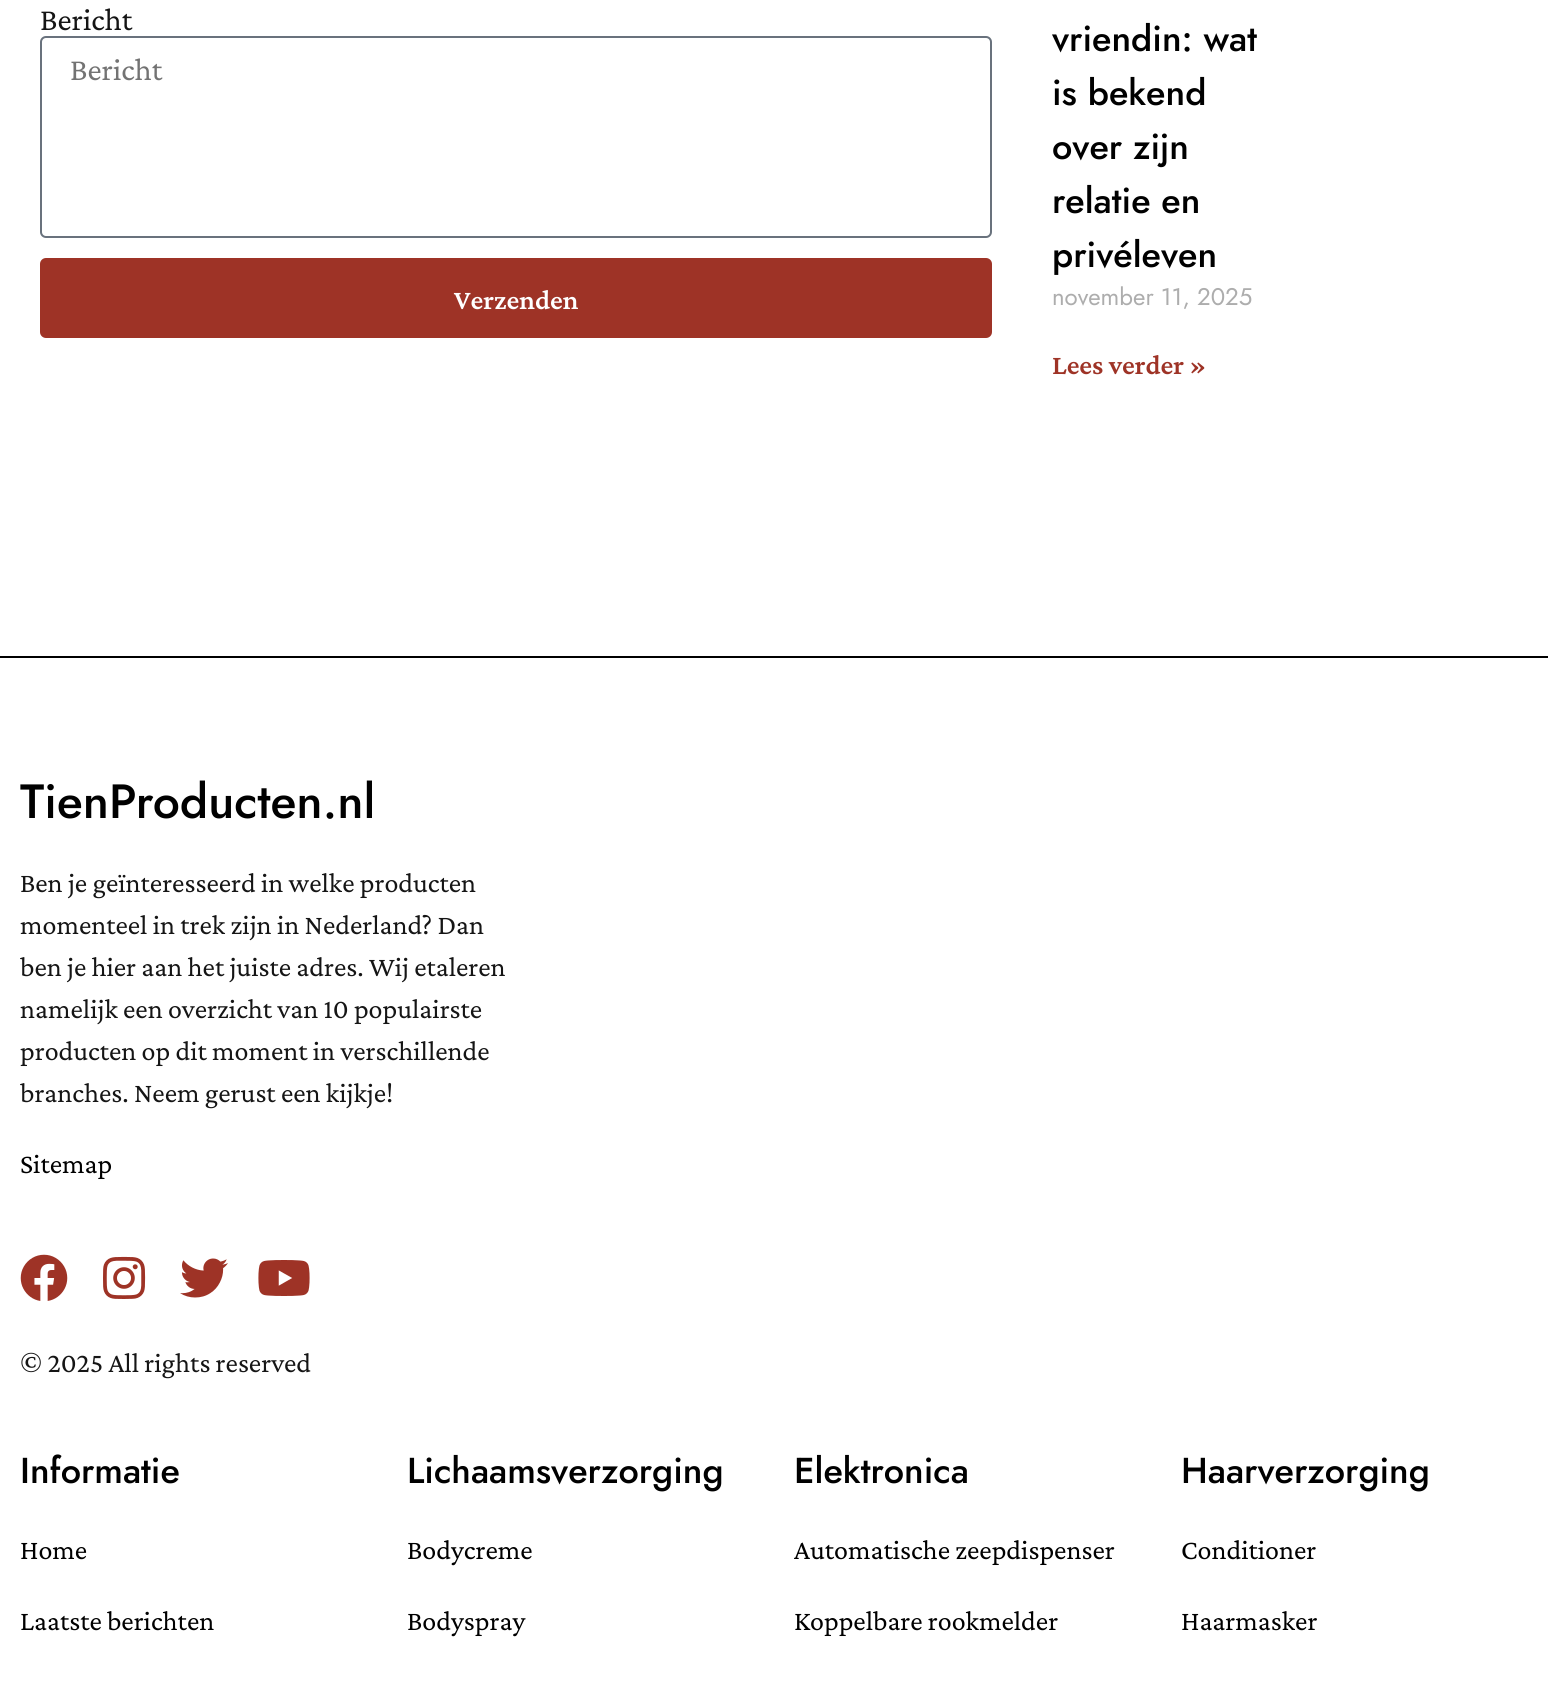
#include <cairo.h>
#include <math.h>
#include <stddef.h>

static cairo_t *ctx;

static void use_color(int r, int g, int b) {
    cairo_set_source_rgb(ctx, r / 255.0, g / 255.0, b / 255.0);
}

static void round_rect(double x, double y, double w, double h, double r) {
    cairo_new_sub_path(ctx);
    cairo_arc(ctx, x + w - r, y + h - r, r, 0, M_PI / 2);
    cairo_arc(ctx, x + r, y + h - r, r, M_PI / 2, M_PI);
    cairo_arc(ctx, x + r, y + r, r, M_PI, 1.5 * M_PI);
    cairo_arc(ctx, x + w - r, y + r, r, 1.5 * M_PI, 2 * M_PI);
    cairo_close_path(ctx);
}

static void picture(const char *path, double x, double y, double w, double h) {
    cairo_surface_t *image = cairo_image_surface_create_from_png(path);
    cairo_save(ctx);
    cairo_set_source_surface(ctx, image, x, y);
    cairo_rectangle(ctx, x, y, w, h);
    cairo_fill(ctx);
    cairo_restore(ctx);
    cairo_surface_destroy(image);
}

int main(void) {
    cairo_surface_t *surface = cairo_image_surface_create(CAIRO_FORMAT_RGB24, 1548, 1692);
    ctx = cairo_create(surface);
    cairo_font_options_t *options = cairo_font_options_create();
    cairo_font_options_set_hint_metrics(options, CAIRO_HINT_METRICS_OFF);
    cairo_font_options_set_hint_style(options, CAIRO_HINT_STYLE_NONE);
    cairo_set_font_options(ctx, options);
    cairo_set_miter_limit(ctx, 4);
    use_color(255, 255, 255);
    cairo_paint(ctx);
    cairo_select_font_face(ctx, "Crimson Pro", CAIRO_FONT_SLANT_NORMAL, CAIRO_FONT_WEIGHT_NORMAL);
    cairo_set_font_size(ctx, 32);
    use_color(21, 21, 21);
    cairo_move_to(ctx, 40, 30);
    cairo_show_text(ctx, "Bericht");
    round_rect(41, 37, 950, 200, 5);
    use_color(105, 114, 125);
    cairo_stroke(ctx);
    use_color(115, 115, 115);
    cairo_move_to(ctx, 70, 80);
    cairo_show_text(ctx, "Bericht");
    use_color(158, 51, 38);
    round_rect(40, 258, 952, 80, 6);
    cairo_fill(ctx);
    cairo_select_font_face(ctx, "Crimson Pro SemiBold", CAIRO_FONT_SLANT_NORMAL, CAIRO_FONT_WEIGHT_NORMAL);
    cairo_set_font_size(ctx, 28);
    use_color(255, 255, 255);
    cairo_move_to(ctx, 454, 309);
    cairo_show_text(ctx, "Verzenden");
    cairo_select_font_face(ctx, "Jost Medium", CAIRO_FONT_SLANT_NORMAL, CAIRO_FONT_WEIGHT_NORMAL);
    cairo_set_font_size(ctx, 36);
    use_color(0, 0, 0);
    cairo_move_to(ctx, 1052, 51);
    cairo_show_text(ctx, "vriendin: wat");
    cairo_move_to(ctx, 1052, 105);
    cairo_show_text(ctx, "is bekend");
    cairo_move_to(ctx, 1052, 159);
    cairo_show_text(ctx, "over zijn");
    cairo_move_to(ctx, 1052, 213);
    cairo_show_text(ctx, "relatie en");
    cairo_move_to(ctx, 1052, 267);
    cairo_show_text(ctx, "privéleven");
    cairo_select_font_face(ctx, "Jost", CAIRO_FONT_SLANT_NORMAL, CAIRO_FONT_WEIGHT_NORMAL);
    cairo_set_font_size(ctx, 24);
    use_color(173, 173, 173);
    cairo_move_to(ctx, 1052, 305);
    cairo_show_text(ctx, "november 11, 2025");
    cairo_select_font_face(ctx, "Crimson Pro SemiBold", CAIRO_FONT_SLANT_NORMAL, CAIRO_FONT_WEIGHT_NORMAL);
    cairo_set_font_size(ctx, 28);
    use_color(158, 51, 38);
    cairo_move_to(ctx, 1052, 374);
    cairo_show_text(ctx, "Lees verder »");
    use_color(0, 0, 0);
    cairo_rectangle(ctx, 0, 656, 1548, 2);
    cairo_fill(ctx);
    picture("img1.png", 20, 780, 352, 39);
    cairo_select_font_face(ctx, "Crimson Pro", CAIRO_FONT_SLANT_NORMAL, CAIRO_FONT_WEIGHT_NORMAL);
    use_color(21, 21, 21);
    cairo_move_to(ctx, 20, 892);
    cairo_show_text(ctx, "Ben je geïnteresseerd in welke producten");
    cairo_move_to(ctx, 20, 934);
    cairo_show_text(ctx, "momenteel in trek zijn in Nederland? Dan");
    cairo_move_to(ctx, 20, 976);
    cairo_show_text(ctx, "ben je hier aan het juiste adres. Wij etaleren");
    cairo_move_to(ctx, 20, 1018);
    cairo_show_text(ctx, "namelijk een overzicht van 10 populairste");
    cairo_move_to(ctx, 20, 1060);
    cairo_show_text(ctx, "producten op dit moment in verschillende");
    cairo_move_to(ctx, 20, 1102);
    cairo_show_text(ctx, "branches. Neem gerust een kijkje!");
    use_color(0, 0, 0);
    cairo_move_to(ctx, 20, 1173);
    cairo_show_text(ctx, "Sitemap");
    picture("img2.png", 20, 1254, 48, 47);
    picture("img3.png", 103, 1256, 43, 43);
    picture("img4.png", 180, 1258, 48, 40);
    picture("img5.png", 258, 1260, 52, 36);
    use_color(21, 21, 21);
    cairo_move_to(ctx, 20, 1372);
    cairo_show_text(ctx, "© 2025 All rights reserved");
    cairo_select_font_face(ctx, "Jost Medium", CAIRO_FONT_SLANT_NORMAL, CAIRO_FONT_WEIGHT_NORMAL);
    cairo_set_font_size(ctx, 36);
    use_color(0, 0, 0);
    cairo_move_to(ctx, 20, 1483);
    cairo_show_text(ctx, "Informatie");
    cairo_select_font_face(ctx, "Crimson Pro", CAIRO_FONT_SLANT_NORMAL, CAIRO_FONT_WEIGHT_NORMAL);
    cairo_set_font_size(ctx, 28);
    cairo_move_to(ctx, 20, 1559);
    cairo_show_text(ctx, "Home");
    cairo_move_to(ctx, 20, 1630);
    cairo_show_text(ctx, "Laatste berichten");
    cairo_select_font_face(ctx, "Jost Medium", CAIRO_FONT_SLANT_NORMAL, CAIRO_FONT_WEIGHT_NORMAL);
    cairo_set_font_size(ctx, 36);
    cairo_move_to(ctx, 407, 1483);
    cairo_show_text(ctx, "Lichaamsverzorging");
    cairo_select_font_face(ctx, "Crimson Pro", CAIRO_FONT_SLANT_NORMAL, CAIRO_FONT_WEIGHT_NORMAL);
    cairo_set_font_size(ctx, 28);
    cairo_move_to(ctx, 407, 1559);
    cairo_show_text(ctx, "Bodycreme");
    cairo_move_to(ctx, 407, 1630);
    cairo_show_text(ctx, "Bodyspray");
    cairo_select_font_face(ctx, "Jost Medium", CAIRO_FONT_SLANT_NORMAL, CAIRO_FONT_WEIGHT_NORMAL);
    cairo_set_font_size(ctx, 36);
    cairo_move_to(ctx, 794, 1483);
    cairo_show_text(ctx, "Elektronica");
    cairo_select_font_face(ctx, "Crimson Pro", CAIRO_FONT_SLANT_NORMAL, CAIRO_FONT_WEIGHT_NORMAL);
    cairo_set_font_size(ctx, 28);
    cairo_move_to(ctx, 794, 1559);
    cairo_show_text(ctx, "Automatische zeepdispenser");
    cairo_move_to(ctx, 794, 1630);
    cairo_show_text(ctx, "Koppelbare rookmelder");
    cairo_select_font_face(ctx, "Jost Medium", CAIRO_FONT_SLANT_NORMAL, CAIRO_FONT_WEIGHT_NORMAL);
    cairo_set_font_size(ctx, 36);
    cairo_move_to(ctx, 1181, 1483);
    cairo_show_text(ctx, "Haarverzorging");
    cairo_select_font_face(ctx, "Crimson Pro", CAIRO_FONT_SLANT_NORMAL, CAIRO_FONT_WEIGHT_NORMAL);
    cairo_set_font_size(ctx, 28);
    cairo_move_to(ctx, 1181, 1559);
    cairo_show_text(ctx, "Conditioner");
    cairo_move_to(ctx, 1181, 1630);
    cairo_show_text(ctx, "Haarmasker");
    cairo_surface_write_to_png(surface, "result.png");
    cairo_font_options_destroy(options);
    cairo_destroy(ctx);
    cairo_surface_destroy(surface);
    return 0;
}
